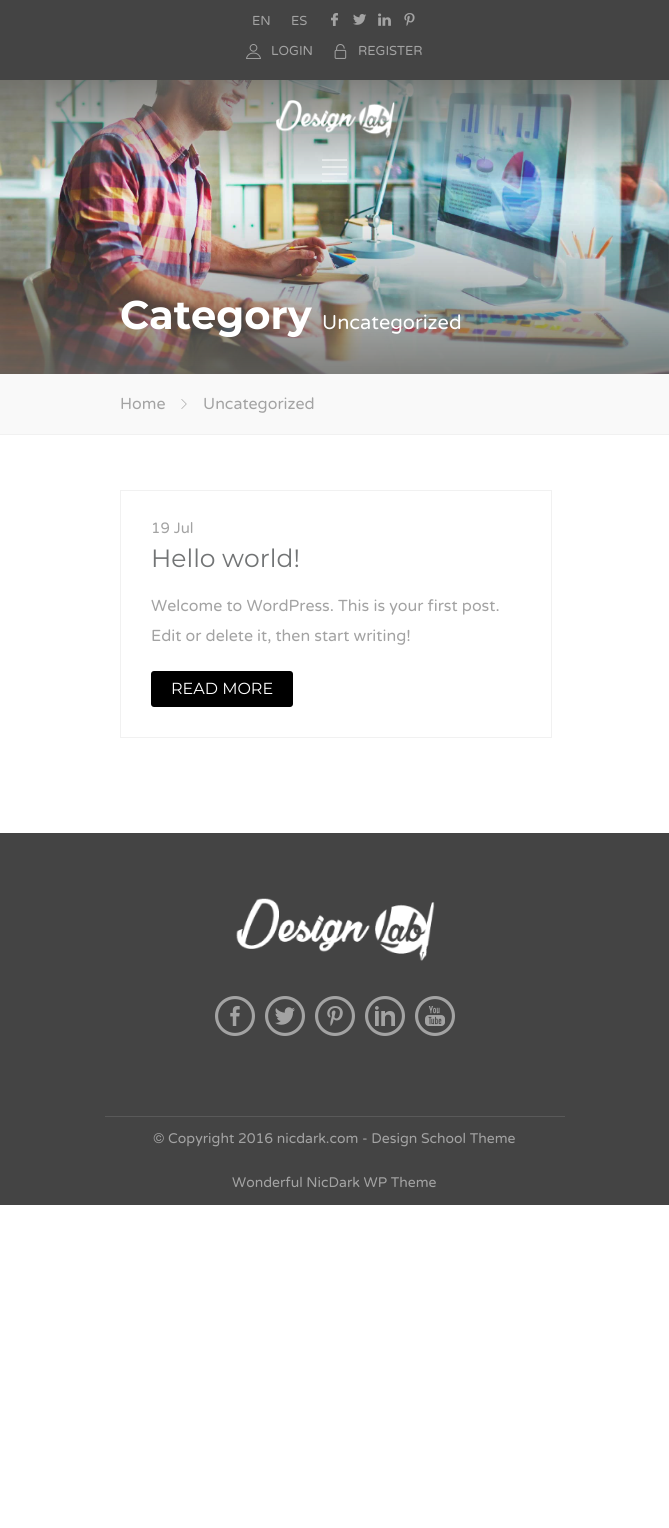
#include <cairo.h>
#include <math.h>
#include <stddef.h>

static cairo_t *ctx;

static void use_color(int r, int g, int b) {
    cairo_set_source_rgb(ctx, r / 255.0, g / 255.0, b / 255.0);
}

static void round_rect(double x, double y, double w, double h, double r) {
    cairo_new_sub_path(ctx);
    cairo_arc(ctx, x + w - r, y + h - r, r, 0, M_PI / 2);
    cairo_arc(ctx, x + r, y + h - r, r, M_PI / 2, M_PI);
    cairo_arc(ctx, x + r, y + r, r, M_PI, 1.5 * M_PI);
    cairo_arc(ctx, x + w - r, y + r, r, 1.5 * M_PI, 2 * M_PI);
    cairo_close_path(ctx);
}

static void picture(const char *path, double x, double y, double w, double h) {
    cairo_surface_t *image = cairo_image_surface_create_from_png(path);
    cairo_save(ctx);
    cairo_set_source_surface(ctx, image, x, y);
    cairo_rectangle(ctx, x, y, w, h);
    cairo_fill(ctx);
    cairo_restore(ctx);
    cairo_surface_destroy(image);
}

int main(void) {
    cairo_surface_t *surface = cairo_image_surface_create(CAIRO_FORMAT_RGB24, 669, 1528);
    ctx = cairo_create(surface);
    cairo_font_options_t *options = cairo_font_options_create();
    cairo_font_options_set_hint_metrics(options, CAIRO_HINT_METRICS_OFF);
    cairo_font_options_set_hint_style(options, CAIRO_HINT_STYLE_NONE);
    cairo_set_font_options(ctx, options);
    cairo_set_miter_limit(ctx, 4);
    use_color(255, 255, 255);
    cairo_paint(ctx);
    use_color(68, 68, 68);
    cairo_rectangle(ctx, 0, 0, 669, 80);
    cairo_fill(ctx);
    cairo_select_font_face(ctx, "Varela Round", CAIRO_FONT_SLANT_NORMAL, CAIRO_FONT_WEIGHT_NORMAL);
    cairo_set_font_size(ctx, 13);
    use_color(163, 163, 163);
    cairo_move_to(ctx, 252, 25);
    cairo_show_text(ctx, "EN");
    cairo_move_to(ctx, 291, 25);
    cairo_show_text(ctx, "ES");
    picture("img1.png", 331, 13, 7, 13);
    picture("img2.png", 353, 14, 14, 11);
    picture("img3.png", 378, 13, 13, 13);
    picture("img4.png", 404, 13, 11, 13);
    picture("img5.png", 246, 44, 15, 15);
    cairo_move_to(ctx, 271, 55);
    cairo_show_text(ctx, "LOGIN");
    picture("img6.png", 334, 44, 13, 15);
    cairo_move_to(ctx, 358, 55);
    cairo_show_text(ctx, "REGISTER");
    picture("img9.png", 0, 80, 669, 294);
    picture("img7.png", 276, 100, 119, 38);
    picture("img8.png", 322, 159, 25, 23);
    cairo_select_font_face(ctx, "Montserrat", CAIRO_FONT_SLANT_NORMAL, CAIRO_FONT_WEIGHT_BOLD);
    cairo_set_font_size(ctx, 40);
    use_color(255, 255, 255);
    cairo_move_to(ctx, 120, 329);
    cairo_show_text(ctx, "Category");
    cairo_select_font_face(ctx, "Varela Round", CAIRO_FONT_SLANT_NORMAL, CAIRO_FONT_WEIGHT_NORMAL);
    cairo_set_font_size(ctx, 20);
    cairo_move_to(ctx, 322, 329);
    cairo_show_text(ctx, "Uncategorized");
    use_color(249, 249, 249);
    cairo_rectangle(ctx, 0, 374, 669, 60);
    cairo_fill(ctx);
    use_color(241, 241, 241);
    cairo_rectangle(ctx, 0, 434, 669, 1);
    cairo_fill(ctx);
    cairo_set_font_size(ctx, 16);
    use_color(163, 163, 163);
    cairo_move_to(ctx, 120, 409);
    cairo_show_text(ctx, "Home");
    picture("img10.png", 181, 399, 6, 10);
    cairo_move_to(ctx, 203, 409);
    cairo_show_text(ctx, "Uncategorized");
    cairo_rectangle(ctx, 120.5, 490.5, 431, 247);
    use_color(241, 241, 241);
    cairo_set_line_width(ctx, 1);
    cairo_stroke(ctx);
    cairo_set_font_size(ctx, 15);
    use_color(163, 163, 163);
    cairo_move_to(ctx, 151, 533);
    cairo_show_text(ctx, "19 Jul");
    cairo_select_font_face(ctx, "Montserrat", CAIRO_FONT_SLANT_NORMAL, CAIRO_FONT_WEIGHT_NORMAL);
    cairo_set_font_size(ctx, 25);
    use_color(114, 116, 117);
    cairo_move_to(ctx, 151, 567);
    cairo_show_text(ctx, "Hello world!");
    cairo_select_font_face(ctx, "Varela Round", CAIRO_FONT_SLANT_NORMAL, CAIRO_FONT_WEIGHT_NORMAL);
    cairo_set_font_size(ctx, 16);
    use_color(163, 163, 163);
    cairo_move_to(ctx, 151, 611);
    cairo_show_text(ctx, "Welcome to WordPress. This is your first post.");
    cairo_move_to(ctx, 151, 641);
    cairo_show_text(ctx, "Edit or delete it, then start writing!");
    use_color(0, 0, 0);
    round_rect(151, 671, 142, 36, 3);
    cairo_fill(ctx);
    cairo_select_font_face(ctx, "Montserrat", CAIRO_FONT_SLANT_NORMAL, CAIRO_FONT_WEIGHT_NORMAL);
    use_color(255, 255, 255);
    cairo_move_to(ctx, 171, 694);
    cairo_show_text(ctx, "READ MORE");
    use_color(68, 68, 68);
    cairo_rectangle(ctx, 0, 833, 669, 372);
    cairo_fill(ctx);
    picture("img11.png", 236, 898, 199, 63);
    picture("img12.png", 215, 996, 40, 40);
    picture("img13.png", 265, 996, 40, 40);
    picture("img14.png", 315, 996, 40, 40);
    picture("img15.png", 365, 996, 40, 40);
    picture("img16.png", 415, 996, 40, 40);
    use_color(89, 89, 89);
    cairo_rectangle(ctx, 105, 1116, 460, 1);
    cairo_fill(ctx);
    cairo_select_font_face(ctx, "Varela Round", CAIRO_FONT_SLANT_NORMAL, CAIRO_FONT_WEIGHT_NORMAL);
    cairo_set_font_size(ctx, 14);
    use_color(163, 163, 163);
    cairo_move_to(ctx, 153, 1143);
    cairo_show_text(ctx, "© Copyright 2016 nicdark.com - Design School Theme");
    cairo_move_to(ctx, 232, 1187);
    cairo_show_text(ctx, "Wonderful NicDark WP Theme");
    cairo_surface_write_to_png(surface, "result.png");
    cairo_font_options_destroy(options);
    cairo_destroy(ctx);
    cairo_surface_destroy(surface);
    return 0;
}
